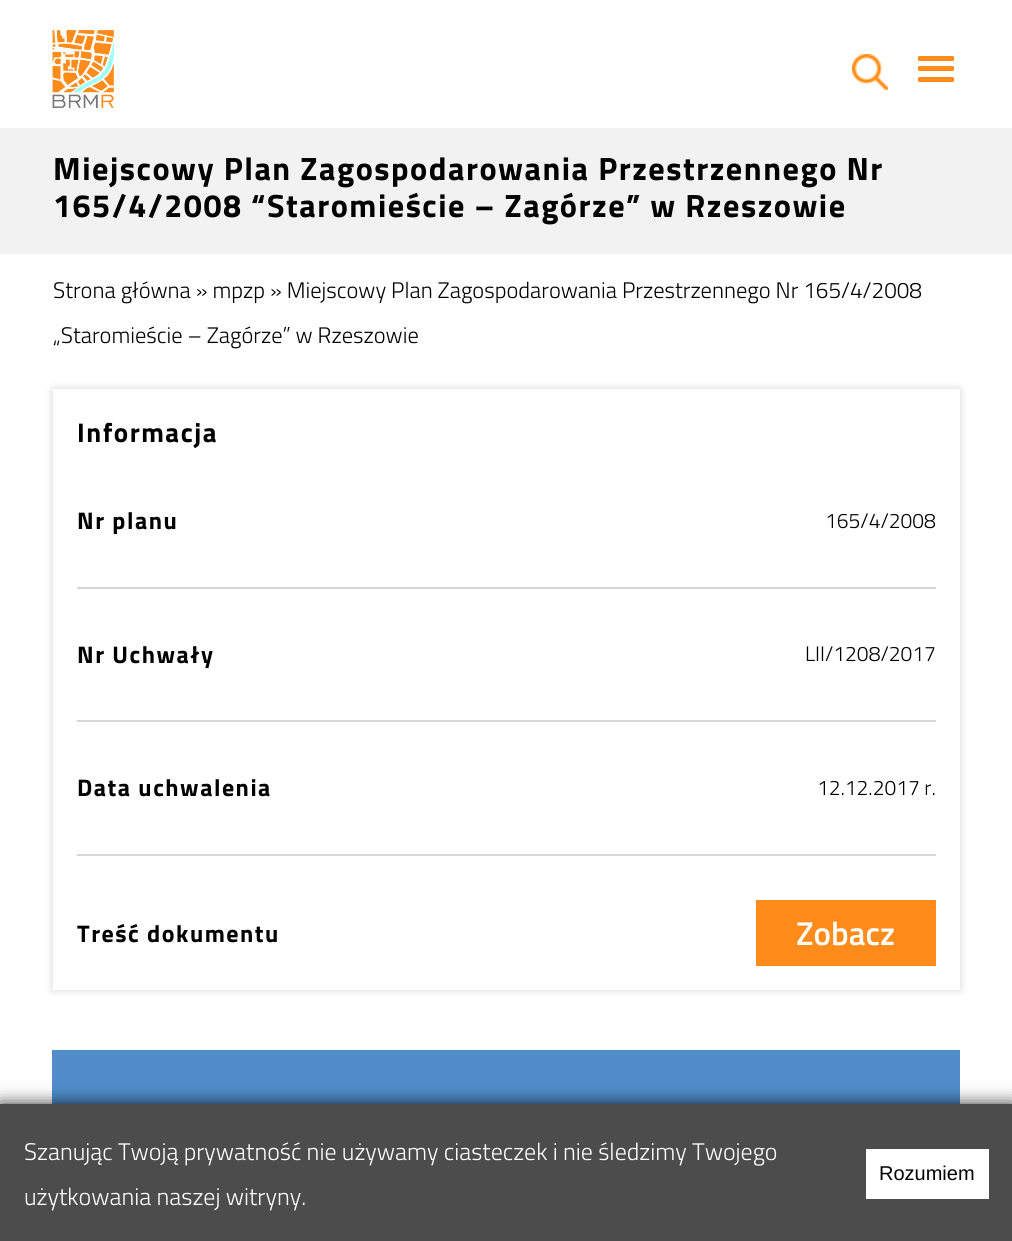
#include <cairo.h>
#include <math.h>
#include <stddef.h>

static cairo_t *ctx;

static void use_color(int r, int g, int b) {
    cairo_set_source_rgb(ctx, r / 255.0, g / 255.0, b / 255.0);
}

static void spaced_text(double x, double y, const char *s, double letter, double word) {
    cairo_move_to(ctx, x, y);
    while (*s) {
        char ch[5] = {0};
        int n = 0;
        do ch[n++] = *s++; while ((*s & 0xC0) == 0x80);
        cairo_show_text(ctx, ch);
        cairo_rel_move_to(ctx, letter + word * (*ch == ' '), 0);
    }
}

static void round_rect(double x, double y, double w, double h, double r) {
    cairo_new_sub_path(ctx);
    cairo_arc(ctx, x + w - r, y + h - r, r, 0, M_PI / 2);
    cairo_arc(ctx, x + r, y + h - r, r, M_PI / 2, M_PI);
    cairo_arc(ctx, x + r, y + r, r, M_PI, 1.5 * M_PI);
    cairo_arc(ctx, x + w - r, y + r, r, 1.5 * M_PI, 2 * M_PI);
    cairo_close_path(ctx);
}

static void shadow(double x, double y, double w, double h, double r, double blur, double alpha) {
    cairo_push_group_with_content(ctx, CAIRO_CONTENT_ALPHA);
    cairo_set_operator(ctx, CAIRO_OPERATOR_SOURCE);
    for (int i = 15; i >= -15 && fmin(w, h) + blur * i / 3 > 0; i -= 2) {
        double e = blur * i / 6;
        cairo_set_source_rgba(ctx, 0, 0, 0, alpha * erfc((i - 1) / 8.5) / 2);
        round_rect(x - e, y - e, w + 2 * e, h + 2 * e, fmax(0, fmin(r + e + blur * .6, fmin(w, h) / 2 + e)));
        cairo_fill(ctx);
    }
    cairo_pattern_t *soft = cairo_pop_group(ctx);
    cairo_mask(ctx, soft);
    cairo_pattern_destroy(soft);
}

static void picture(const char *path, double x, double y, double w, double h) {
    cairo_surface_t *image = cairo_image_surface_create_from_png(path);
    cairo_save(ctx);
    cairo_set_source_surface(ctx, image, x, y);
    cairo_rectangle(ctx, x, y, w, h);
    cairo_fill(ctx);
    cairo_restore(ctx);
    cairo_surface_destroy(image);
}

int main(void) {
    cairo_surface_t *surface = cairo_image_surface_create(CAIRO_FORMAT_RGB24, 1012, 1241);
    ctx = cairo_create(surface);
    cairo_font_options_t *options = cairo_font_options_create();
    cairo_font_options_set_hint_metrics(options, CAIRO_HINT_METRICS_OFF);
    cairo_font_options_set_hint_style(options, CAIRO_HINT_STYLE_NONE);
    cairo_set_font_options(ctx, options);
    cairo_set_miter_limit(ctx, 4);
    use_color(255, 255, 255);
    cairo_paint(ctx);
    cairo_save(ctx);
    cairo_set_fill_rule(ctx, CAIRO_FILL_RULE_EVEN_ODD);
    cairo_new_path(ctx);
    cairo_move_to(ctx, 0, 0);
    cairo_line_to(ctx, 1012, 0);
    cairo_line_to(ctx, 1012, 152);
    cairo_line_to(ctx, 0, 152);
    cairo_close_path(ctx);
    cairo_move_to(ctx, 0, 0);
    cairo_line_to(ctx, 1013, 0);
    cairo_line_to(ctx, 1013, 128);
    cairo_line_to(ctx, 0, 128);
    cairo_close_path(ctx);
    cairo_clip(ctx);
    use_color(123, 123, 123);
    shadow(0, 9, 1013, 128, 0, 4.5, 0.2);
    cairo_restore(ctx);
    picture("img1.png", 52, 30, 62, 78);
    picture("img2.png", 852, 54, 36, 36);
    use_color(255, 139, 26);
    round_rect(918, 56, 36, 5, 1.5);
    cairo_fill(ctx);
    round_rect(918, 66, 36, 5, 1.5);
    cairo_fill(ctx);
    round_rect(918, 77, 36, 5, 1.5);
    cairo_fill(ctx);
    use_color(243, 242, 242);
    cairo_rectangle(ctx, 0, 128, 1012, 126);
    cairo_fill(ctx);
    cairo_select_font_face(ctx, "Titillium Web", CAIRO_FONT_SLANT_NORMAL, CAIRO_FONT_WEIGHT_BOLD);
    cairo_set_font_size(ctx, 32.25);
    use_color(0, 0, 0);
    spaced_text(53, 180, "Miejscowy Plan Zagospodarowania Przestrzennego Nr", 1.5, 0);
    spaced_text(53, 217, "165/4/2008 “Staromieście – Zagórze” w Rzeszowie", 1.5, 0);
    cairo_select_font_face(ctx, "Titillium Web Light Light", CAIRO_FONT_SLANT_NORMAL, CAIRO_FONT_WEIGHT_NORMAL);
    cairo_set_font_size(ctx, 22.5);
    cairo_move_to(ctx, 53, 298);
    cairo_show_text(ctx, "Strona główna » mpzp » Miejscowy Plan Zagospodarowania Przestrzennego Nr 165/4/2008");
    cairo_move_to(ctx, 53, 343);
    cairo_show_text(ctx, "„Staromieście – Zagórze” w Rzeszowie");
    cairo_save(ctx);
    cairo_set_fill_rule(ctx, CAIRO_FILL_RULE_EVEN_ODD);
    cairo_new_path(ctx);
    cairo_move_to(ctx, 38, 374);
    cairo_line_to(ctx, 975, 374);
    cairo_line_to(ctx, 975, 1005);
    cairo_line_to(ctx, 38, 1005);
    cairo_close_path(ctx);
    cairo_move_to(ctx, 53, 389);
    cairo_line_to(ctx, 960, 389);
    cairo_line_to(ctx, 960, 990);
    cairo_line_to(ctx, 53, 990);
    cairo_close_path(ctx);
    cairo_clip(ctx);
    use_color(0, 0, 0);
    shadow(53, 389, 907, 601, 0, 4.5, 0.16);
    cairo_restore(ctx);
    cairo_select_font_face(ctx, "Titillium Web", CAIRO_FONT_SLANT_NORMAL, CAIRO_FONT_WEIGHT_BOLD);
    cairo_set_font_size(ctx, 27);
    spaced_text(77, 442, "Informacja", 1.5, 0);
    use_color(214, 214, 214);
    cairo_rectangle(ctx, 77, 587, 859, 2);
    cairo_fill(ctx);
    cairo_set_font_size(ctx, 24);
    use_color(0, 0, 0);
    spaced_text(77, 529, "Nr planu", 1.5, 0);
    cairo_select_font_face(ctx, "Titillium Web Light Light", CAIRO_FONT_SLANT_NORMAL, CAIRO_FONT_WEIGHT_NORMAL);
    cairo_set_font_size(ctx, 21);
    cairo_move_to(ctx, 825, 528);
    cairo_show_text(ctx, "165/4/2008");
    use_color(214, 214, 214);
    cairo_rectangle(ctx, 77, 720, 859, 2);
    cairo_fill(ctx);
    cairo_select_font_face(ctx, "Titillium Web", CAIRO_FONT_SLANT_NORMAL, CAIRO_FONT_WEIGHT_BOLD);
    cairo_set_font_size(ctx, 24);
    use_color(0, 0, 0);
    spaced_text(77, 663, "Nr Uchwały", 1.5, 0);
    cairo_select_font_face(ctx, "Titillium Web Light Light", CAIRO_FONT_SLANT_NORMAL, CAIRO_FONT_WEIGHT_NORMAL);
    cairo_set_font_size(ctx, 21);
    cairo_move_to(ctx, 805, 661);
    cairo_show_text(ctx, "LII/1208/2017");
    use_color(214, 214, 214);
    cairo_rectangle(ctx, 77, 854, 859, 2);
    cairo_fill(ctx);
    cairo_select_font_face(ctx, "Titillium Web", CAIRO_FONT_SLANT_NORMAL, CAIRO_FONT_WEIGHT_BOLD);
    cairo_set_font_size(ctx, 24);
    use_color(0, 0, 0);
    spaced_text(77, 796, "Data uchwalenia", 1.5, 0);
    cairo_select_font_face(ctx, "Titillium Web Light Light", CAIRO_FONT_SLANT_NORMAL, CAIRO_FONT_WEIGHT_NORMAL);
    cairo_set_font_size(ctx, 21);
    cairo_move_to(ctx, 817, 795);
    cairo_show_text(ctx, "12.12.2017 r.");
    cairo_save(ctx);
    cairo_rectangle(ctx, 77, 455, 859, 511);
    cairo_clip(ctx);
    cairo_select_font_face(ctx, "Titillium Web", CAIRO_FONT_SLANT_NORMAL, CAIRO_FONT_WEIGHT_BOLD);
    cairo_set_font_size(ctx, 24);
    spaced_text(77, 942, "Treść dokumentu", 1.5, 0);
    cairo_restore(ctx);
    use_color(255, 139, 26);
    cairo_rectangle(ctx, 756, 900, 180, 66);
    cairo_fill(ctx);
    cairo_select_font_face(ctx, "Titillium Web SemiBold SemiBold", CAIRO_FONT_SLANT_NORMAL, CAIRO_FONT_WEIGHT_NORMAL);
    cairo_set_font_size(ctx, 33);
    use_color(255, 255, 255);
    cairo_move_to(ctx, 796, 945);
    cairo_show_text(ctx, "Zobacz");
    use_color(80, 141, 202);
    cairo_rectangle(ctx, 52, 1050, 908, 54);
    cairo_fill(ctx);
    use_color(0, 0, 0);
    shadow(0, 1104, 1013, 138, 0, 9, 0.8);
    use_color(76, 76, 76);
    cairo_rectangle(ctx, 0, 1104, 1012, 137);
    cairo_fill(ctx);
    cairo_select_font_face(ctx, "Titillium Web Light Light", CAIRO_FONT_SLANT_NORMAL, CAIRO_FONT_WEIGHT_NORMAL);
    cairo_set_font_size(ctx, 24);
    use_color(255, 255, 255);
    cairo_move_to(ctx, 24, 1160);
    cairo_show_text(ctx, "Szanując Twoją prywatność nie używamy ciasteczek i nie śledzimy Twojego");
    cairo_move_to(ctx, 24, 1205);
    cairo_show_text(ctx, "użytkowania naszej witryny.");
    cairo_rectangle(ctx, 866, 1149, 123, 50);
    cairo_fill(ctx);
    cairo_select_font_face(ctx, "Liberation Sans", CAIRO_FONT_SLANT_NORMAL, CAIRO_FONT_WEIGHT_NORMAL);
    cairo_set_font_size(ctx, 20);
    use_color(0, 0, 0);
    cairo_move_to(ctx, 879, 1180);
    cairo_show_text(ctx, "Rozumiem");
    cairo_surface_write_to_png(surface, "result.png");
    cairo_font_options_destroy(options);
    cairo_destroy(ctx);
    cairo_surface_destroy(surface);
    return 0;
}
